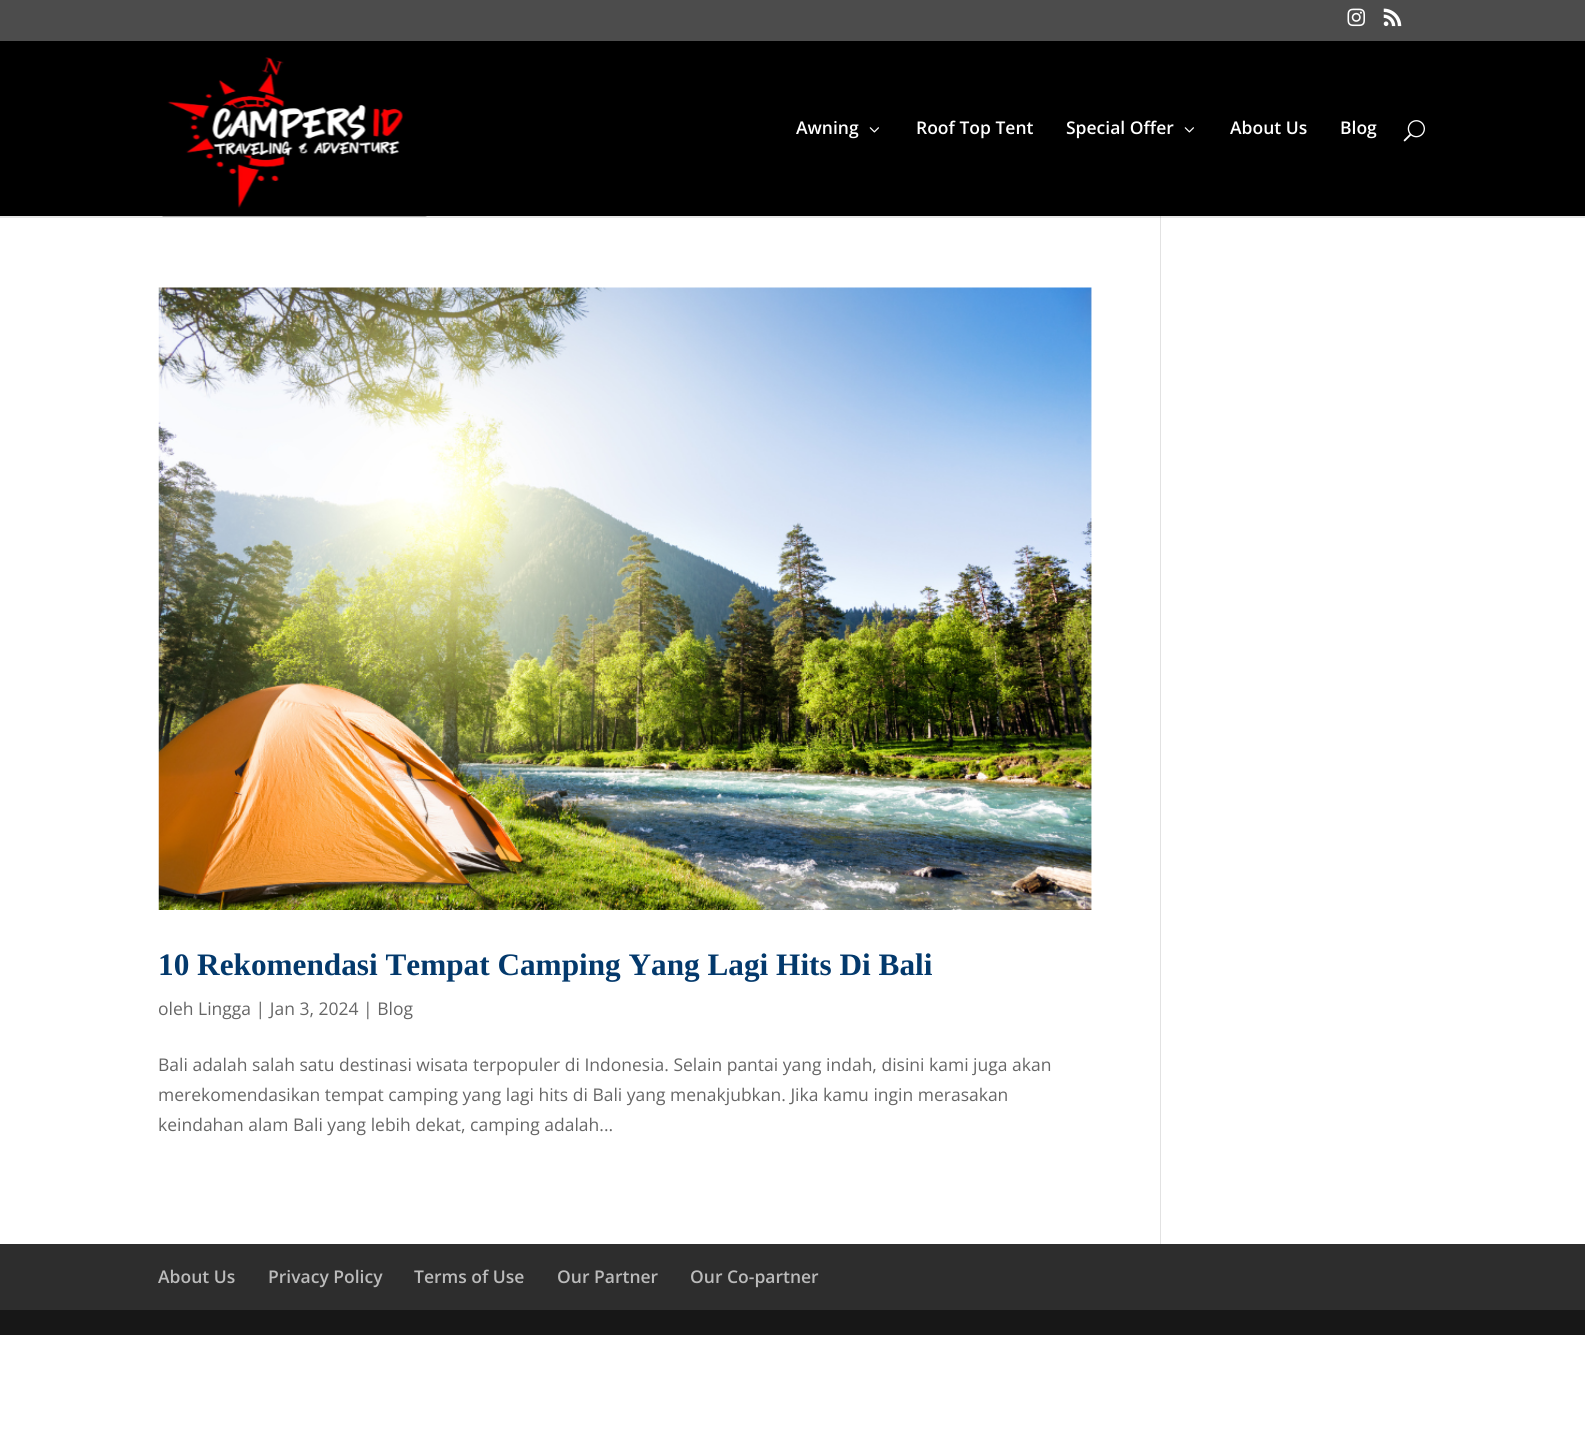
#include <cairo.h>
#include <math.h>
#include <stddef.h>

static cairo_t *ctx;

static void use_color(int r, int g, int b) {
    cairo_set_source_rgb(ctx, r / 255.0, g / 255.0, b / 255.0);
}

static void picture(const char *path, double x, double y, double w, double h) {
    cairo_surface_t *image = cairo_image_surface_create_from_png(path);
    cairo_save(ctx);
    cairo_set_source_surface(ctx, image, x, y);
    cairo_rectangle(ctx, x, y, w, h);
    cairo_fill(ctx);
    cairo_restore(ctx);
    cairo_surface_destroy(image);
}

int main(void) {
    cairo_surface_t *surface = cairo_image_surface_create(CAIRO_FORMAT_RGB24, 1585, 1450);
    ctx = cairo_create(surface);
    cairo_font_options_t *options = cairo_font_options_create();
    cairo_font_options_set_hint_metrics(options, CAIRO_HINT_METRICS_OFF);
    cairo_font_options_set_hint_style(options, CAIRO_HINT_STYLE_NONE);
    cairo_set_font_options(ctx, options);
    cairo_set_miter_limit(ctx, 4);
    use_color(255, 255, 255);
    cairo_paint(ctx);
    use_color(230, 230, 230);
    cairo_rectangle(ctx, 0, 216, 1585, 2);
    cairo_fill(ctx);
    use_color(76, 76, 76);
    cairo_rectangle(ctx, 0, 0, 1585, 41);
    cairo_fill(ctx);
    picture("img1.png", 1347, 8, 18, 19);
    picture("img2.png", 1383, 8, 19, 19);
    use_color(226, 226, 226);
    cairo_rectangle(ctx, 1160, 215, 1, 1029);
    cairo_fill(ctx);
    use_color(0, 0, 0);
    cairo_rectangle(ctx, 0, 41, 1585, 175);
    cairo_fill(ctx);
    picture("img3.png", 162, 57, 265, 160);
    cairo_select_font_face(ctx, "Open Sans SemiBold", CAIRO_FONT_SLANT_NORMAL, CAIRO_FONT_WEIGHT_NORMAL);
    cairo_set_font_size(ctx, 17.5);
    use_color(255, 255, 255);
    cairo_move_to(ctx, 796, 134);
    cairo_show_text(ctx, "Awning");
    picture("img4.png", 869, 127, 10, 6);
    cairo_move_to(ctx, 916, 134);
    cairo_show_text(ctx, "Roof Top Tent");
    cairo_move_to(ctx, 1066, 134);
    cairo_show_text(ctx, "Special Offer");
    picture("img4.png", 1184, 127, 10, 6);
    cairo_move_to(ctx, 1230, 134);
    cairo_show_text(ctx, "About Us");
    cairo_move_to(ctx, 1340, 134);
    cairo_show_text(ctx, "Blog");
    picture("img5.png", 1403, 120, 22, 22);
    picture("img6.png", 158, 287, 934, 623);
    cairo_select_font_face(ctx, "Liberation Serif", CAIRO_FONT_SLANT_NORMAL, CAIRO_FONT_WEIGHT_BOLD);
    cairo_set_font_size(ctx, 31.25);
    use_color(3, 57, 108);
    cairo_move_to(ctx, 158, 975);
    cairo_show_text(ctx, "10 Rekomendasi Tempat Camping Yang Lagi Hits Di Bali");
    cairo_select_font_face(ctx, "Open Sans", CAIRO_FONT_SLANT_NORMAL, CAIRO_FONT_WEIGHT_NORMAL);
    cairo_set_font_size(ctx, 17.5);
    use_color(102, 102, 102);
    cairo_move_to(ctx, 158, 1015);
    cairo_show_text(ctx, "oleh Lingga | Jan 3, 2024 | Blog");
    cairo_move_to(ctx, 158, 1071);
    cairo_show_text(ctx, "Bali adalah salah satu destinasi wisata terpopuler di Indonesia. Selain pantai yang indah, disini kami juga akan");
    cairo_move_to(ctx, 158, 1101);
    cairo_show_text(ctx, "merekomendasikan tempat camping yang lagi hits di Bali yang menakjubkan. Jika kamu ingin merasakan");
    cairo_move_to(ctx, 158, 1131);
    cairo_show_text(ctx, "keindahan alam Bali yang lebih dekat, camping adalah...");
    use_color(203, 203, 203);
    cairo_rectangle(ctx, 1160, 216, 1, 2);
    cairo_fill(ctx);
    use_color(45, 45, 45);
    cairo_rectangle(ctx, 0, 1244, 1585, 66);
    cairo_fill(ctx);
    cairo_select_font_face(ctx, "Open Sans SemiBold", CAIRO_FONT_SLANT_NORMAL, CAIRO_FONT_WEIGHT_NORMAL);
    use_color(187, 187, 187);
    cairo_move_to(ctx, 158, 1283);
    cairo_show_text(ctx, "About Us");
    cairo_move_to(ctx, 268, 1283);
    cairo_show_text(ctx, "Privacy Policy");
    cairo_move_to(ctx, 414, 1283);
    cairo_show_text(ctx, "Terms of Use");
    cairo_move_to(ctx, 557, 1283);
    cairo_show_text(ctx, "Our Partner");
    cairo_move_to(ctx, 690, 1283);
    cairo_show_text(ctx, "Our Co-partner");
    use_color(23, 23, 23);
    cairo_rectangle(ctx, 0, 1310, 1585, 25);
    cairo_fill(ctx);
    cairo_surface_write_to_png(surface, "result.png");
    cairo_font_options_destroy(options);
    cairo_destroy(ctx);
    cairo_surface_destroy(surface);
    return 0;
}
